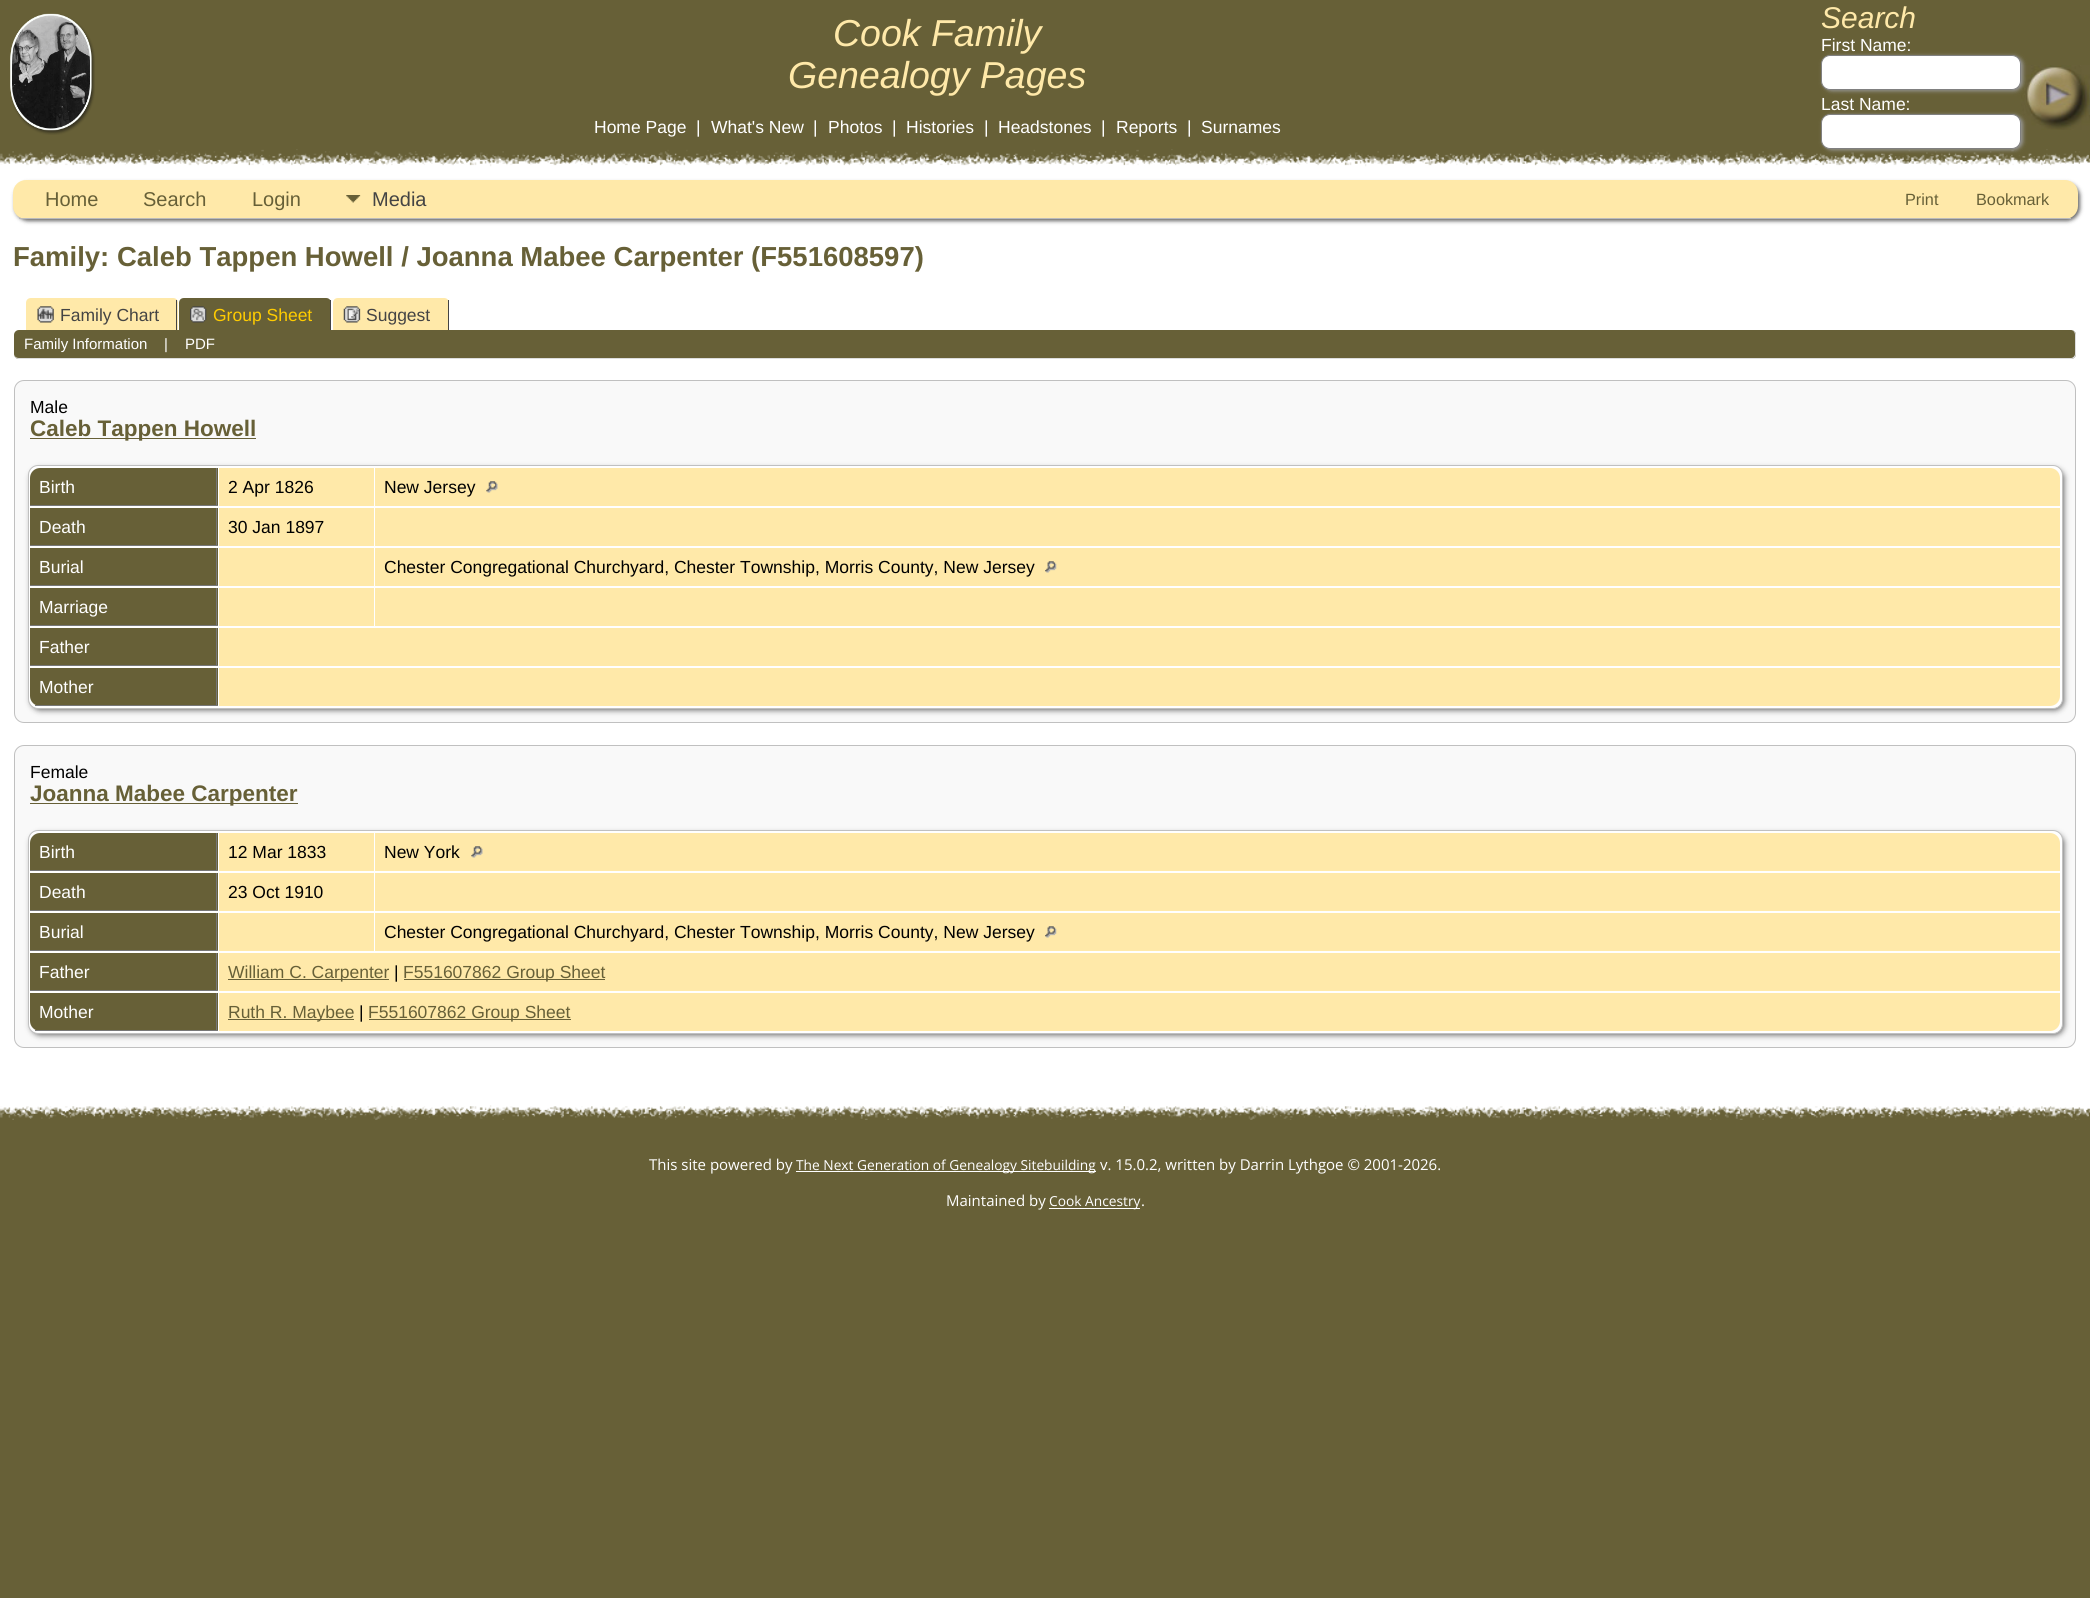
#include <cairo.h>
#include <math.h>
#include <stddef.h>

static cairo_t *ctx;

static void use_color(int r, int g, int b) {
    cairo_set_source_rgb(ctx, r / 255.0, g / 255.0, b / 255.0);
}

static void round_rect(double x, double y, double w, double h, double r) {
    cairo_new_sub_path(ctx);
    cairo_arc(ctx, x + w - r, y + h - r, r, 0, M_PI / 2);
    cairo_arc(ctx, x + r, y + h - r, r, M_PI / 2, M_PI);
    cairo_arc(ctx, x + r, y + r, r, M_PI, 1.5 * M_PI);
    cairo_arc(ctx, x + w - r, y + r, r, 1.5 * M_PI, 2 * M_PI);
    cairo_close_path(ctx);
}

static void shadow(double x, double y, double w, double h, double r, double blur, double alpha) {
    cairo_push_group_with_content(ctx, CAIRO_CONTENT_ALPHA);
    cairo_set_operator(ctx, CAIRO_OPERATOR_SOURCE);
    for (int i = 15; i >= -15 && fmin(w, h) + blur * i / 3 > 0; i -= 2) {
        double e = blur * i / 6;
        cairo_set_source_rgba(ctx, 0, 0, 0, alpha * erfc((i - 1) / 8.5) / 2);
        round_rect(x - e, y - e, w + 2 * e, h + 2 * e, fmax(0, fmin(r + e + blur * .6, fmin(w, h) / 2 + e)));
        cairo_fill(ctx);
    }
    cairo_pattern_t *soft = cairo_pop_group(ctx);
    cairo_mask(ctx, soft);
    cairo_pattern_destroy(soft);
}

static void picture(const char *path, double x, double y, double w, double h) {
    cairo_surface_t *image = cairo_image_surface_create_from_png(path);
    cairo_save(ctx);
    cairo_set_source_surface(ctx, image, x, y);
    cairo_rectangle(ctx, x, y, w, h);
    cairo_fill(ctx);
    cairo_restore(ctx);
    cairo_surface_destroy(image);
}

int main(void) {
    cairo_surface_t *surface = cairo_image_surface_create(CAIRO_FORMAT_RGB24, 2090, 1598);
    ctx = cairo_create(surface);
    cairo_font_options_t *options = cairo_font_options_create();
    cairo_font_options_set_hint_metrics(options, CAIRO_HINT_METRICS_OFF);
    cairo_font_options_set_hint_style(options, CAIRO_HINT_STYLE_NONE);
    cairo_set_font_options(ctx, options);
    cairo_set_miter_limit(ctx, 4);
    use_color(103, 96, 55);
    cairo_paint(ctx);
    picture("img1.png", 10, 13, 85, 122);
    cairo_select_font_face(ctx, "Liberation Sans", CAIRO_FONT_SLANT_ITALIC, CAIRO_FONT_WEIGHT_NORMAL);
    cairo_set_font_size(ctx, 37.5);
    use_color(255, 233, 169);
    cairo_move_to(ctx, 833, 46);
    cairo_show_text(ctx, "Cook Family");
    cairo_move_to(ctx, 788, 88);
    cairo_show_text(ctx, "Genealogy Pages");
    cairo_select_font_face(ctx, "Liberation Sans", CAIRO_FONT_SLANT_NORMAL, CAIRO_FONT_WEIGHT_NORMAL);
    cairo_set_font_size(ctx, 17.5);
    use_color(255, 255, 255);
    cairo_move_to(ctx, 594, 133);
    cairo_show_text(ctx, "Home Page");
    cairo_move_to(ctx, 696, 133);
    cairo_show_text(ctx, "|");
    cairo_move_to(ctx, 711, 133);
    cairo_show_text(ctx, "What's New");
    cairo_move_to(ctx, 813, 133);
    cairo_show_text(ctx, "|");
    cairo_move_to(ctx, 828, 133);
    cairo_show_text(ctx, "Photos");
    cairo_move_to(ctx, 892, 133);
    cairo_show_text(ctx, "|");
    cairo_move_to(ctx, 906, 133);
    cairo_show_text(ctx, "Histories");
    cairo_move_to(ctx, 984, 133);
    cairo_show_text(ctx, "|");
    cairo_move_to(ctx, 998, 133);
    cairo_show_text(ctx, "Headstones");
    cairo_move_to(ctx, 1101, 133);
    cairo_show_text(ctx, "|");
    cairo_move_to(ctx, 1116, 133);
    cairo_show_text(ctx, "Reports");
    cairo_move_to(ctx, 1187, 133);
    cairo_show_text(ctx, "|");
    cairo_move_to(ctx, 1201, 133);
    cairo_show_text(ctx, "Surnames");
    cairo_select_font_face(ctx, "Liberation Sans", CAIRO_FONT_SLANT_ITALIC, CAIRO_FONT_WEIGHT_NORMAL);
    cairo_set_font_size(ctx, 30);
    use_color(255, 233, 169);
    cairo_move_to(ctx, 1821, 28);
    cairo_show_text(ctx, "Search");
    cairo_select_font_face(ctx, "Liberation Sans", CAIRO_FONT_SLANT_NORMAL, CAIRO_FONT_WEIGHT_NORMAL);
    cairo_set_font_size(ctx, 17.5);
    use_color(255, 255, 255);
    cairo_move_to(ctx, 1821, 51);
    cairo_show_text(ctx, "First Name:");
    picture("img2.png", 2021, 65, 69, 65);
    use_color(153, 153, 153);
    shadow(1823, 56, 200, 35, 9, 2, 1);
    use_color(255, 255, 255);
    round_rect(1821.5, 55.5, 199, 34, 8.5);
    cairo_fill_preserve(ctx);
    use_color(128, 128, 128);
    cairo_set_line_width(ctx, 1);
    cairo_stroke(ctx);
    use_color(255, 255, 255);
    cairo_move_to(ctx, 1821, 110);
    cairo_show_text(ctx, "Last Name:");
    picture("img3.png", 0, 149, 2090, 18);
    use_color(153, 153, 153);
    shadow(1823, 115, 200, 35, 9, 2, 1);
    use_color(255, 255, 255);
    round_rect(1821.5, 114.5, 199, 34, 8.5);
    cairo_fill_preserve(ctx);
    use_color(128, 128, 128);
    cairo_stroke(ctx);
    use_color(255, 255, 255);
    cairo_rectangle(ctx, 0, 167, 2090, 938);
    cairo_fill(ctx);
    use_color(102, 102, 102);
    shadow(15, 183, 2065, 38, 13, 2, 1);
    use_color(255, 233, 169);
    round_rect(13, 180, 2065, 39, 13);
    cairo_fill(ctx);
    use_color(187, 187, 187);
    cairo_rectangle(ctx, 19, 218, 2052, 1);
    cairo_fill(ctx);
    cairo_set_font_size(ctx, 20);
    use_color(103, 96, 55);
    cairo_move_to(ctx, 45, 206);
    cairo_show_text(ctx, "Home");
    cairo_move_to(ctx, 143, 206);
    cairo_show_text(ctx, "Search");
    cairo_move_to(ctx, 252, 206);
    cairo_show_text(ctx, "Login");
    picture("img4.png", 346, 195, 15, 8);
    use_color(68, 68, 68);
    cairo_move_to(ctx, 372, 206);
    cairo_show_text(ctx, "Media");
    cairo_set_font_size(ctx, 16.25);
    use_color(103, 96, 55);
    cairo_move_to(ctx, 1905, 205);
    cairo_show_text(ctx, "Print");
    cairo_move_to(ctx, 1976, 205);
    cairo_show_text(ctx, "Bookmark");
    cairo_select_font_face(ctx, "Liberation Sans", CAIRO_FONT_SLANT_NORMAL, CAIRO_FONT_WEIGHT_BOLD);
    cairo_set_font_size(ctx, 27.5);
    cairo_move_to(ctx, 13, 266);
    cairo_show_text(ctx, "Family: Caleb Tappen Howell / Joanna Mabee Carpenter (F551608597)");
    use_color(255, 233, 169);
    cairo_new_path(ctx);
    cairo_move_to(ctx, 31, 298);
    cairo_line_to(ctx, 173, 298);
    cairo_curve_to(ctx, 176, 298, 178, 300, 178, 303);
    cairo_line_to(ctx, 178, 330);
    cairo_line_to(ctx, 26, 330);
    cairo_line_to(ctx, 26, 303);
    cairo_curve_to(ctx, 26, 300, 28, 298, 31, 298);
    cairo_close_path(ctx);
    cairo_fill(ctx);
    use_color(68, 68, 68);
    cairo_rectangle(ctx, 176, 300, 1, 30);
    cairo_fill(ctx);
    picture("img5.png", 37, 306, 17, 17);
    cairo_select_font_face(ctx, "Liberation Sans", CAIRO_FONT_SLANT_NORMAL, CAIRO_FONT_WEIGHT_NORMAL);
    cairo_set_font_size(ctx, 17.5);
    cairo_move_to(ctx, 60, 321);
    cairo_show_text(ctx, "Family Chart");
    use_color(103, 96, 55);
    cairo_new_path(ctx);
    cairo_move_to(ctx, 184, 298);
    cairo_line_to(ctx, 326, 298);
    cairo_curve_to(ctx, 329, 298, 331, 300, 331, 303);
    cairo_line_to(ctx, 331, 330);
    cairo_line_to(ctx, 179, 330);
    cairo_line_to(ctx, 179, 303);
    cairo_curve_to(ctx, 179, 300, 181, 298, 184, 298);
    cairo_close_path(ctx);
    cairo_fill(ctx);
    use_color(68, 68, 68);
    cairo_rectangle(ctx, 330, 300, 1, 30);
    cairo_fill(ctx);
    picture("img6.png", 190, 306, 17, 17);
    use_color(255, 204, 0);
    cairo_move_to(ctx, 213, 321);
    cairo_show_text(ctx, "Group Sheet");
    use_color(255, 233, 169);
    cairo_new_path(ctx);
    cairo_move_to(ctx, 338, 298);
    cairo_line_to(ctx, 444, 298);
    cairo_curve_to(ctx, 447, 298, 449, 300, 449, 303);
    cairo_line_to(ctx, 449, 330);
    cairo_line_to(ctx, 333, 330);
    cairo_line_to(ctx, 333, 303);
    cairo_curve_to(ctx, 333, 300, 335, 298, 338, 298);
    cairo_close_path(ctx);
    cairo_fill(ctx);
    use_color(68, 68, 68);
    cairo_rectangle(ctx, 448, 300, 1, 30);
    cairo_fill(ctx);
    picture("img7.png", 343, 306, 18, 17);
    cairo_move_to(ctx, 366, 321);
    cairo_show_text(ctx, "Suggest");
    use_color(103, 96, 55);
    round_rect(14, 330, 2062, 29, 5);
    cairo_fill(ctx);
    use_color(221, 221, 221);
    cairo_set_fill_rule(ctx, CAIRO_FILL_RULE_EVEN_ODD);
    cairo_new_path(ctx);
    cairo_move_to(ctx, 19, 330);
    cairo_line_to(ctx, 2071, 330);
    cairo_curve_to(ctx, 2074, 330, 2076, 332, 2076, 335);
    cairo_line_to(ctx, 2076, 354);
    cairo_curve_to(ctx, 2076, 357, 2074, 359, 2071, 359);
    cairo_line_to(ctx, 19, 359);
    cairo_curve_to(ctx, 16, 359, 14, 357, 14, 354);
    cairo_line_to(ctx, 14, 335);
    cairo_curve_to(ctx, 14, 332, 16, 330, 19, 330);
    cairo_close_path(ctx);
    cairo_move_to(ctx, 19, 330);
    cairo_line_to(ctx, 2071, 330);
    cairo_curve_to(ctx, 2073, 330, 2075, 332, 2075, 335);
    cairo_line_to(ctx, 2075, 354);
    cairo_curve_to(ctx, 2075, 356, 2073, 358, 2071, 358);
    cairo_line_to(ctx, 19, 358);
    cairo_curve_to(ctx, 16, 358, 14, 356, 14, 354);
    cairo_line_to(ctx, 14, 335);
    cairo_curve_to(ctx, 14, 332, 16, 330, 19, 330);
    cairo_close_path(ctx);
    cairo_fill(ctx);
    cairo_set_font_size(ctx, 15);
    use_color(255, 255, 255);
    cairo_move_to(ctx, 24, 349);
    cairo_show_text(ctx, "Family Information");
    cairo_move_to(ctx, 164, 349);
    cairo_show_text(ctx, "|");
    cairo_move_to(ctx, 185, 349);
    cairo_show_text(ctx, "PDF");
    use_color(249, 249, 249);
    round_rect(14.5, 380.5, 2061, 342, 9.5);
    cairo_fill_preserve(ctx);
    use_color(192, 192, 192);
    cairo_stroke(ctx);
    cairo_set_font_size(ctx, 17.5);
    use_color(0, 0, 0);
    cairo_move_to(ctx, 30, 413);
    cairo_show_text(ctx, "Male");
    use_color(103, 96, 55);
    cairo_rectangle(ctx, 30, 438, 226, 1);
    cairo_fill(ctx);
    cairo_select_font_face(ctx, "Liberation Sans", CAIRO_FONT_SLANT_NORMAL, CAIRO_FONT_WEIGHT_BOLD);
    cairo_set_font_size(ctx, 22.5);
    cairo_move_to(ctx, 30, 436);
    cairo_show_text(ctx, "Caleb Tappen Howell");
    use_color(102, 102, 102);
    shadow(31, 469, 2033, 241, 9, 3, 1);
    use_color(255, 255, 255);
    round_rect(28.5, 465.5, 2034, 243, 9.5);
    cairo_fill_preserve(ctx);
    use_color(192, 192, 192);
    cairo_stroke(ctx);
    use_color(103, 96, 55);
    cairo_new_path(ctx);
    cairo_move_to(ctx, 40, 468);
    cairo_line_to(ctx, 218, 468);
    cairo_line_to(ctx, 218, 506);
    cairo_line_to(ctx, 30, 506);
    cairo_line_to(ctx, 30, 478);
    cairo_curve_to(ctx, 30, 472.5, 34.5, 468, 40, 468);
    cairo_close_path(ctx);
    cairo_fill(ctx);
    use_color(119, 119, 119);
    cairo_rectangle(ctx, 216, 468, 1, 38);
    cairo_fill(ctx);
    cairo_rectangle(ctx, 30, 505, 188, 1);
    cairo_fill(ctx);
    cairo_select_font_face(ctx, "Liberation Sans", CAIRO_FONT_SLANT_NORMAL, CAIRO_FONT_WEIGHT_NORMAL);
    cairo_set_font_size(ctx, 17.5);
    use_color(255, 255, 255);
    cairo_move_to(ctx, 39, 493);
    cairo_show_text(ctx, "Birth");
    use_color(255, 233, 169);
    cairo_rectangle(ctx, 219, 468, 155, 38);
    cairo_fill(ctx);
    use_color(0, 0, 0);
    cairo_move_to(ctx, 228, 493);
    cairo_show_text(ctx, "2 Apr 1826");
    use_color(255, 233, 169);
    cairo_new_path(ctx);
    cairo_move_to(ctx, 375, 468);
    cairo_line_to(ctx, 2050, 468);
    cairo_curve_to(ctx, 2055.5, 468, 2060, 472.5, 2060, 478);
    cairo_line_to(ctx, 2060, 506);
    cairo_line_to(ctx, 375, 506);
    cairo_close_path(ctx);
    cairo_fill(ctx);
    use_color(0, 0, 0);
    cairo_move_to(ctx, 384, 493);
    cairo_show_text(ctx, "New Jersey");
    picture("img8.png", 486, 481, 12, 12);
    use_color(103, 96, 55);
    cairo_rectangle(ctx, 30, 508, 188, 37);
    cairo_fill(ctx);
    use_color(119, 119, 119);
    cairo_rectangle(ctx, 216, 508, 1, 38);
    cairo_fill(ctx);
    cairo_rectangle(ctx, 30, 545, 188, 1);
    cairo_fill(ctx);
    use_color(255, 255, 255);
    cairo_move_to(ctx, 39, 533);
    cairo_show_text(ctx, "Death");
    use_color(255, 233, 169);
    cairo_rectangle(ctx, 219, 508, 155, 38);
    cairo_fill(ctx);
    use_color(0, 0, 0);
    cairo_move_to(ctx, 228, 533);
    cairo_show_text(ctx, "30 Jan 1897");
    use_color(255, 233, 169);
    cairo_rectangle(ctx, 375, 508, 1685, 38);
    cairo_fill(ctx);
    use_color(103, 96, 55);
    cairo_rectangle(ctx, 30, 548, 188, 37);
    cairo_fill(ctx);
    use_color(119, 119, 119);
    cairo_rectangle(ctx, 216, 548, 1, 38);
    cairo_fill(ctx);
    cairo_rectangle(ctx, 30, 585, 188, 1);
    cairo_fill(ctx);
    use_color(255, 255, 255);
    cairo_move_to(ctx, 39, 573);
    cairo_show_text(ctx, "Burial");
    use_color(255, 233, 169);
    cairo_rectangle(ctx, 219, 548, 155, 38);
    cairo_fill(ctx);
    cairo_rectangle(ctx, 375, 548, 1685, 38);
    cairo_fill(ctx);
    use_color(0, 0, 0);
    cairo_move_to(ctx, 384, 573);
    cairo_show_text(ctx, "Chester Congregational Churchyard, Chester Township, Morris County, New Jersey");
    picture("img9.png", 1045, 561, 12, 12);
    use_color(103, 96, 55);
    cairo_rectangle(ctx, 30, 588, 188, 37);
    cairo_fill(ctx);
    use_color(119, 119, 119);
    cairo_rectangle(ctx, 216, 588, 1, 38);
    cairo_fill(ctx);
    cairo_rectangle(ctx, 30, 625, 188, 1);
    cairo_fill(ctx);
    use_color(255, 255, 255);
    cairo_move_to(ctx, 39, 613);
    cairo_show_text(ctx, "Marriage");
    use_color(255, 233, 169);
    cairo_rectangle(ctx, 219, 588, 155, 38);
    cairo_fill(ctx);
    cairo_rectangle(ctx, 375, 588, 1685, 38);
    cairo_fill(ctx);
    use_color(103, 96, 55);
    cairo_rectangle(ctx, 30, 628, 188, 37);
    cairo_fill(ctx);
    use_color(119, 119, 119);
    cairo_rectangle(ctx, 216, 628, 1, 38);
    cairo_fill(ctx);
    cairo_rectangle(ctx, 30, 665, 188, 1);
    cairo_fill(ctx);
    use_color(255, 255, 255);
    cairo_move_to(ctx, 39, 653);
    cairo_show_text(ctx, "Father");
    use_color(255, 233, 169);
    cairo_rectangle(ctx, 219, 628, 1841, 38);
    cairo_fill(ctx);
    use_color(103, 96, 55);
    cairo_new_path(ctx);
    cairo_move_to(ctx, 30, 668);
    cairo_line_to(ctx, 218, 668);
    cairo_line_to(ctx, 218, 706);
    cairo_line_to(ctx, 40, 706);
    cairo_curve_to(ctx, 34.5, 706, 30, 701.5, 30, 696);
    cairo_close_path(ctx);
    cairo_fill(ctx);
    use_color(119, 119, 119);
    cairo_rectangle(ctx, 216, 668, 1, 38);
    cairo_fill(ctx);
    cairo_rectangle(ctx, 35, 705, 183, 1);
    cairo_fill(ctx);
    use_color(255, 255, 255);
    cairo_move_to(ctx, 39, 693);
    cairo_show_text(ctx, "Mother");
    use_color(255, 233, 169);
    cairo_new_path(ctx);
    cairo_move_to(ctx, 219, 668);
    cairo_line_to(ctx, 2060, 668);
    cairo_line_to(ctx, 2060, 696);
    cairo_curve_to(ctx, 2060, 701.5, 2055.5, 706, 2050, 706);
    cairo_line_to(ctx, 219, 706);
    cairo_close_path(ctx);
    cairo_fill(ctx);
    use_color(249, 249, 249);
    round_rect(14.5, 745.5, 2061, 302, 9.5);
    cairo_fill_preserve(ctx);
    use_color(192, 192, 192);
    cairo_stroke(ctx);
    use_color(0, 0, 0);
    cairo_move_to(ctx, 30, 778);
    cairo_show_text(ctx, "Female");
    use_color(103, 96, 55);
    cairo_rectangle(ctx, 30, 803, 268, 1);
    cairo_fill(ctx);
    cairo_select_font_face(ctx, "Liberation Sans", CAIRO_FONT_SLANT_NORMAL, CAIRO_FONT_WEIGHT_BOLD);
    cairo_set_font_size(ctx, 22.5);
    cairo_move_to(ctx, 30, 801);
    cairo_show_text(ctx, "Joanna Mabee Carpenter");
    use_color(102, 102, 102);
    shadow(31, 834, 2033, 201, 9, 3, 1);
    use_color(255, 255, 255);
    round_rect(28.5, 830.5, 2034, 203, 9.5);
    cairo_fill_preserve(ctx);
    use_color(192, 192, 192);
    cairo_stroke(ctx);
    use_color(103, 96, 55);
    cairo_new_path(ctx);
    cairo_move_to(ctx, 40, 833);
    cairo_line_to(ctx, 218, 833);
    cairo_line_to(ctx, 218, 871);
    cairo_line_to(ctx, 30, 871);
    cairo_line_to(ctx, 30, 843);
    cairo_curve_to(ctx, 30, 837.5, 34.5, 833, 40, 833);
    cairo_close_path(ctx);
    cairo_fill(ctx);
    use_color(119, 119, 119);
    cairo_rectangle(ctx, 216, 833, 1, 38);
    cairo_fill(ctx);
    cairo_rectangle(ctx, 30, 870, 188, 1);
    cairo_fill(ctx);
    cairo_select_font_face(ctx, "Liberation Sans", CAIRO_FONT_SLANT_NORMAL, CAIRO_FONT_WEIGHT_NORMAL);
    cairo_set_font_size(ctx, 17.5);
    use_color(255, 255, 255);
    cairo_move_to(ctx, 39, 858);
    cairo_show_text(ctx, "Birth");
    use_color(255, 233, 169);
    cairo_rectangle(ctx, 219, 833, 155, 38);
    cairo_fill(ctx);
    use_color(0, 0, 0);
    cairo_move_to(ctx, 228, 858);
    cairo_show_text(ctx, "12 Mar 1833");
    use_color(255, 233, 169);
    cairo_new_path(ctx);
    cairo_move_to(ctx, 375, 833);
    cairo_line_to(ctx, 2050, 833);
    cairo_curve_to(ctx, 2055.5, 833, 2060, 837.5, 2060, 843);
    cairo_line_to(ctx, 2060, 871);
    cairo_line_to(ctx, 375, 871);
    cairo_close_path(ctx);
    cairo_fill(ctx);
    use_color(0, 0, 0);
    cairo_move_to(ctx, 384, 858);
    cairo_show_text(ctx, "New York");
    picture("img8.png", 471, 846, 12, 12);
    use_color(103, 96, 55);
    cairo_rectangle(ctx, 30, 873, 188, 37);
    cairo_fill(ctx);
    use_color(119, 119, 119);
    cairo_rectangle(ctx, 216, 873, 1, 38);
    cairo_fill(ctx);
    cairo_rectangle(ctx, 30, 910, 188, 1);
    cairo_fill(ctx);
    use_color(255, 255, 255);
    cairo_move_to(ctx, 39, 898);
    cairo_show_text(ctx, "Death");
    use_color(255, 233, 169);
    cairo_rectangle(ctx, 219, 873, 155, 38);
    cairo_fill(ctx);
    use_color(0, 0, 0);
    cairo_move_to(ctx, 228, 898);
    cairo_show_text(ctx, "23 Oct 1910");
    use_color(255, 233, 169);
    cairo_rectangle(ctx, 375, 873, 1685, 38);
    cairo_fill(ctx);
    use_color(103, 96, 55);
    cairo_rectangle(ctx, 30, 913, 188, 37);
    cairo_fill(ctx);
    use_color(119, 119, 119);
    cairo_rectangle(ctx, 216, 913, 1, 38);
    cairo_fill(ctx);
    cairo_rectangle(ctx, 30, 950, 188, 1);
    cairo_fill(ctx);
    use_color(255, 255, 255);
    cairo_move_to(ctx, 39, 938);
    cairo_show_text(ctx, "Burial");
    use_color(255, 233, 169);
    cairo_rectangle(ctx, 219, 913, 155, 38);
    cairo_fill(ctx);
    cairo_rectangle(ctx, 375, 913, 1685, 38);
    cairo_fill(ctx);
    use_color(0, 0, 0);
    cairo_move_to(ctx, 384, 938);
    cairo_show_text(ctx, "Chester Congregational Churchyard, Chester Township, Morris County, New Jersey");
    picture("img9.png", 1045, 926, 12, 12);
    use_color(103, 96, 55);
    cairo_rectangle(ctx, 30, 953, 188, 37);
    cairo_fill(ctx);
    use_color(119, 119, 119);
    cairo_rectangle(ctx, 216, 953, 1, 38);
    cairo_fill(ctx);
    cairo_rectangle(ctx, 30, 990, 188, 1);
    cairo_fill(ctx);
    use_color(255, 255, 255);
    cairo_move_to(ctx, 39, 978);
    cairo_show_text(ctx, "Father");
    use_color(255, 233, 169);
    cairo_rectangle(ctx, 219, 953, 1841, 38);
    cairo_fill(ctx);
    use_color(103, 96, 55);
    cairo_rectangle(ctx, 228, 979, 161, 1);
    cairo_fill(ctx);
    cairo_move_to(ctx, 228, 978);
    cairo_show_text(ctx, "William C. Carpenter");
    use_color(0, 0, 0);
    cairo_move_to(ctx, 394, 978);
    cairo_show_text(ctx, "|");
    use_color(103, 96, 55);
    cairo_rectangle(ctx, 404, 979, 201, 1);
    cairo_fill(ctx);
    cairo_move_to(ctx, 403, 978);
    cairo_show_text(ctx, "F551607862 Group Sheet");
    cairo_new_path(ctx);
    cairo_move_to(ctx, 30, 993);
    cairo_line_to(ctx, 218, 993);
    cairo_line_to(ctx, 218, 1031);
    cairo_line_to(ctx, 40, 1031);
    cairo_curve_to(ctx, 34.5, 1031, 30, 1026.5, 30, 1021);
    cairo_close_path(ctx);
    cairo_fill(ctx);
    use_color(119, 119, 119);
    cairo_rectangle(ctx, 216, 993, 1, 38);
    cairo_fill(ctx);
    cairo_rectangle(ctx, 35, 1030, 183, 1);
    cairo_fill(ctx);
    use_color(255, 255, 255);
    cairo_move_to(ctx, 39, 1018);
    cairo_show_text(ctx, "Mother");
    use_color(255, 233, 169);
    cairo_new_path(ctx);
    cairo_move_to(ctx, 219, 993);
    cairo_line_to(ctx, 2060, 993);
    cairo_line_to(ctx, 2060, 1021);
    cairo_curve_to(ctx, 2060, 1026.5, 2055.5, 1031, 2050, 1031);
    cairo_line_to(ctx, 219, 1031);
    cairo_close_path(ctx);
    cairo_fill(ctx);
    use_color(103, 96, 55);
    cairo_rectangle(ctx, 228, 1019, 126, 1);
    cairo_fill(ctx);
    cairo_move_to(ctx, 228, 1018);
    cairo_show_text(ctx, "Ruth R. Maybee");
    use_color(0, 0, 0);
    cairo_move_to(ctx, 359, 1018);
    cairo_show_text(ctx, "|");
    use_color(103, 96, 55);
    cairo_rectangle(ctx, 369, 1019, 202, 1);
    cairo_fill(ctx);
    cairo_move_to(ctx, 368, 1018);
    cairo_show_text(ctx, "F551607862 Group Sheet");
    picture("img10.png", 0, 1105, 2090, 15);
    cairo_select_font_face(ctx, "Open Sans", CAIRO_FONT_SLANT_NORMAL, CAIRO_FONT_WEIGHT_NORMAL);
    cairo_set_font_size(ctx, 15);
    use_color(255, 255, 255);
    cairo_move_to(ctx, 649, 1170);
    cairo_show_text(ctx, "This site powered by");
    cairo_rectangle(ctx, 796, 1171, 300, 1);
    cairo_fill(ctx);
    cairo_set_font_size(ctx, 13.75);
    cairo_move_to(ctx, 796, 1170);
    cairo_show_text(ctx, "The Next Generation of Genealogy Sitebuilding");
    cairo_set_font_size(ctx, 15);
    cairo_move_to(ctx, 1100, 1170);
    cairo_show_text(ctx, "v. 15.0.2, written by Darrin Lythgoe © 2001-2026.");
    cairo_move_to(ctx, 946, 1206);
    cairo_show_text(ctx, "Maintained by");
    cairo_rectangle(ctx, 1049, 1208, 91, 1);
    cairo_fill(ctx);
    cairo_set_font_size(ctx, 13.75);
    cairo_move_to(ctx, 1049, 1206);
    cairo_show_text(ctx, "Cook Ancestry");
    cairo_set_font_size(ctx, 15);
    cairo_move_to(ctx, 1141, 1206);
    cairo_show_text(ctx, ".");
    cairo_surface_write_to_png(surface, "result.png");
    cairo_font_options_destroy(options);
    cairo_destroy(ctx);
    cairo_surface_destroy(surface);
    return 0;
}
